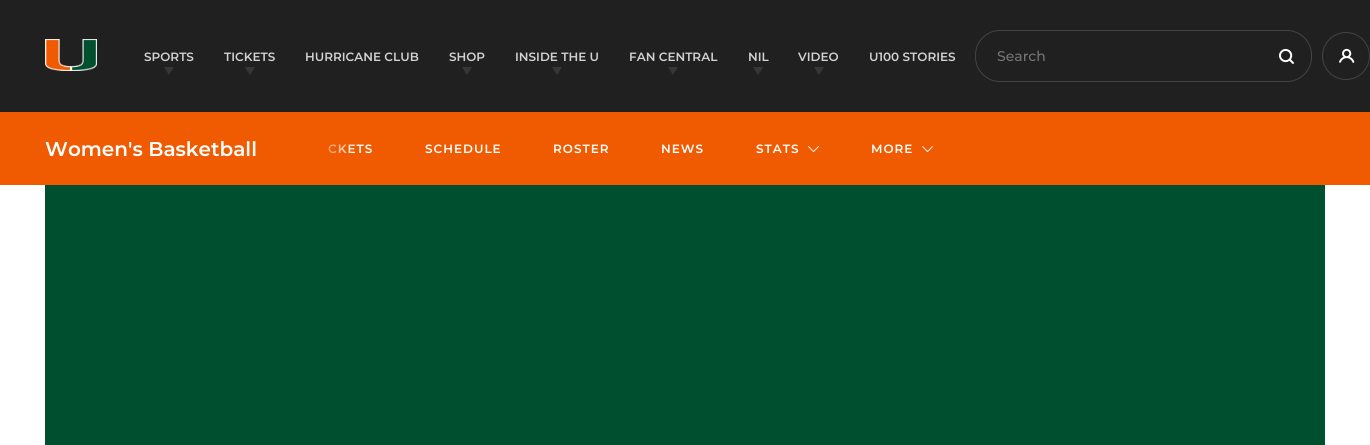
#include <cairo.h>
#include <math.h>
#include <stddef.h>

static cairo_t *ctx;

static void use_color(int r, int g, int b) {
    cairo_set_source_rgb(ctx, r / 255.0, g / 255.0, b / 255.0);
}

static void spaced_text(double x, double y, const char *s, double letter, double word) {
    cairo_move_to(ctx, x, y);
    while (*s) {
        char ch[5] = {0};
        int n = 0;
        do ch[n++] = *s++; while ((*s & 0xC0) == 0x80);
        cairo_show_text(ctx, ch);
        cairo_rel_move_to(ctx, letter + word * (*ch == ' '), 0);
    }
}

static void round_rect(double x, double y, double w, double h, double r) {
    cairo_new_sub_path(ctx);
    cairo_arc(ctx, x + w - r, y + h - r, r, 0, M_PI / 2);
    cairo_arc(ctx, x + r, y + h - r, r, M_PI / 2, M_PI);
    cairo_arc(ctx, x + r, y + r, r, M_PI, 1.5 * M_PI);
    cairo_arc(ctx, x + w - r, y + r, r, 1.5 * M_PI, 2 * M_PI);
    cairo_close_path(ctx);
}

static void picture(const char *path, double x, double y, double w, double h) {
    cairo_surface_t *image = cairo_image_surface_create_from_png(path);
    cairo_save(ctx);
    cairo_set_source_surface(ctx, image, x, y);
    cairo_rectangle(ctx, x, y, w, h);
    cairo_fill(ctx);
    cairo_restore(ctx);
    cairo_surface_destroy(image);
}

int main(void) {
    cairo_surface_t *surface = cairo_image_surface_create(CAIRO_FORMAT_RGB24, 1370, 445);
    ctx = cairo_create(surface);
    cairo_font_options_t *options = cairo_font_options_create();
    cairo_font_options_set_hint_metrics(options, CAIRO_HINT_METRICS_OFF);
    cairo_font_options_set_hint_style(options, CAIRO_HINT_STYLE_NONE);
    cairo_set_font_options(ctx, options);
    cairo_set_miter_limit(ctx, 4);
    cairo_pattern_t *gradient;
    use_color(255, 255, 255);
    cairo_paint(ctx);
    use_color(32, 32, 32);
    cairo_rectangle(ctx, 0, 0, 1370, 112);
    cairo_fill(ctx);
    picture("img1.png", 45, 39, 52, 32);
    cairo_select_font_face(ctx, "Montserrat SemiBold", CAIRO_FONT_SLANT_NORMAL, CAIRO_FONT_WEIGHT_NORMAL);
    cairo_set_font_size(ctx, 12);
    use_color(210, 210, 210);
    cairo_move_to(ctx, 144, 61);
    cairo_show_text(ctx, "SPORTS");
    use_color(55, 55, 55);
    cairo_new_path(ctx);
    cairo_move_to(ctx, 164, 67);
    cairo_line_to(ctx, 174, 67);
    cairo_line_to(ctx, 169, 75);
    cairo_close_path(ctx);
    cairo_fill(ctx);
    use_color(210, 210, 210);
    cairo_move_to(ctx, 224, 61);
    cairo_show_text(ctx, "TICKETS");
    use_color(55, 55, 55);
    cairo_new_path(ctx);
    cairo_move_to(ctx, 245, 67);
    cairo_line_to(ctx, 255, 67);
    cairo_line_to(ctx, 250, 75);
    cairo_close_path(ctx);
    cairo_fill(ctx);
    use_color(210, 210, 210);
    cairo_move_to(ctx, 305, 61);
    cairo_show_text(ctx, "HURRICANE CLUB");
    cairo_move_to(ctx, 449, 61);
    cairo_show_text(ctx, "SHOP");
    use_color(55, 55, 55);
    cairo_new_path(ctx);
    cairo_move_to(ctx, 462, 67);
    cairo_line_to(ctx, 472, 67);
    cairo_line_to(ctx, 467, 75);
    cairo_close_path(ctx);
    cairo_fill(ctx);
    use_color(210, 210, 210);
    cairo_move_to(ctx, 515, 61);
    cairo_show_text(ctx, "INSIDE THE U");
    use_color(55, 55, 55);
    cairo_new_path(ctx);
    cairo_move_to(ctx, 552, 67);
    cairo_line_to(ctx, 562, 67);
    cairo_line_to(ctx, 557, 75);
    cairo_close_path(ctx);
    cairo_fill(ctx);
    use_color(210, 210, 210);
    cairo_move_to(ctx, 629, 61);
    cairo_show_text(ctx, "FAN CENTRAL");
    use_color(55, 55, 55);
    cairo_new_path(ctx);
    cairo_move_to(ctx, 668, 67);
    cairo_line_to(ctx, 678, 67);
    cairo_line_to(ctx, 673, 75);
    cairo_close_path(ctx);
    cairo_fill(ctx);
    use_color(210, 210, 210);
    cairo_move_to(ctx, 748, 61);
    cairo_show_text(ctx, "NIL");
    use_color(55, 55, 55);
    cairo_new_path(ctx);
    cairo_move_to(ctx, 753, 67);
    cairo_line_to(ctx, 763, 67);
    cairo_line_to(ctx, 758, 75);
    cairo_close_path(ctx);
    cairo_fill(ctx);
    use_color(210, 210, 210);
    cairo_move_to(ctx, 798, 61);
    cairo_show_text(ctx, "VIDEO");
    use_color(55, 55, 55);
    cairo_new_path(ctx);
    cairo_move_to(ctx, 814, 67);
    cairo_line_to(ctx, 824, 67);
    cairo_line_to(ctx, 819, 75);
    cairo_close_path(ctx);
    cairo_fill(ctx);
    use_color(210, 210, 210);
    cairo_move_to(ctx, 869, 61);
    cairo_show_text(ctx, "U100 STORIES");
    round_rect(975.5, 30.5, 336, 51, 24.5);
    use_color(67, 67, 67);
    cairo_set_line_width(ctx, 1);
    cairo_stroke(ctx);
    cairo_select_font_face(ctx, "Montserrat Medium", CAIRO_FONT_SLANT_NORMAL, CAIRO_FONT_WEIGHT_NORMAL);
    cairo_set_font_size(ctx, 14);
    use_color(117, 117, 117);
    cairo_move_to(ctx, 997, 61);
    cairo_show_text(ctx, "Search");
    picture("img2.png", 1279, 48, 15, 16);
    cairo_arc(ctx, 1346, 56, 23.5, 0, 2 * M_PI);
    use_color(67, 67, 67);
    cairo_stroke(ctx);
    picture("img3.png", 1339, 48, 16, 15);
    use_color(240, 90, 0);
    cairo_rectangle(ctx, 0, 112, 1370, 73);
    cairo_fill(ctx);
    cairo_select_font_face(ctx, "Montserrat SemiBold", CAIRO_FONT_SLANT_NORMAL, CAIRO_FONT_WEIGHT_NORMAL);
    cairo_set_font_size(ctx, 20);
    use_color(255, 255, 255);
    cairo_move_to(ctx, 45, 156);
    cairo_show_text(ctx, "Women's Basketball");
    cairo_set_font_size(ctx, 12);
    spaced_text(328, 153, "CKETS", 1, 0);
    spaced_text(425, 153, "SCHEDULE", 1, 0);
    spaced_text(553, 153, "ROSTER", 1, 0);
    spaced_text(661, 153, "NEWS", 1, 0);
    spaced_text(756, 153, "STATS", 1, 0);
    picture("img4.png", 808, 146, 11, 7);
    spaced_text(871, 153, "MORE", 1, 0);
    picture("img4.png", 922, 146, 11, 7);
    gradient = cairo_pattern_create_linear(354, 145, 314, 145);
    cairo_pattern_add_color_stop_rgba(gradient, 0, 0.941, 0.353, 0, 0);
    cairo_pattern_add_color_stop_rgba(gradient, 1, 0.941, 0.353, 0, 1);
    cairo_set_source(ctx, gradient);
    cairo_pattern_destroy(gradient);
    cairo_rectangle(ctx, 328, 144, 25, 10);
    cairo_fill(ctx);
    use_color(0, 80, 47);
    cairo_rectangle(ctx, 45, 185, 1280, 260);
    cairo_fill(ctx);
    cairo_surface_write_to_png(surface, "result.png");
    cairo_font_options_destroy(options);
    cairo_destroy(ctx);
    cairo_surface_destroy(surface);
    return 0;
}
